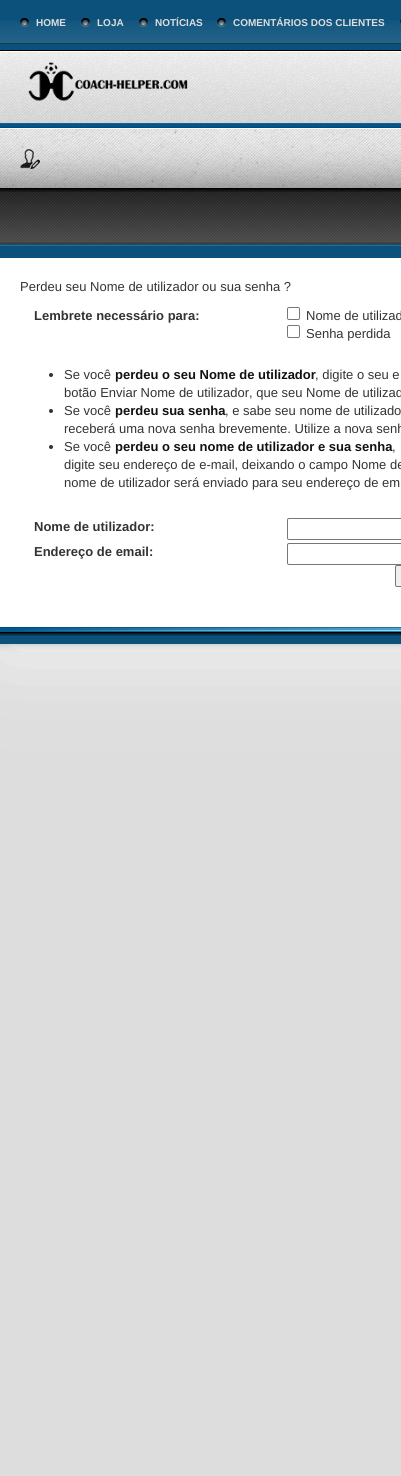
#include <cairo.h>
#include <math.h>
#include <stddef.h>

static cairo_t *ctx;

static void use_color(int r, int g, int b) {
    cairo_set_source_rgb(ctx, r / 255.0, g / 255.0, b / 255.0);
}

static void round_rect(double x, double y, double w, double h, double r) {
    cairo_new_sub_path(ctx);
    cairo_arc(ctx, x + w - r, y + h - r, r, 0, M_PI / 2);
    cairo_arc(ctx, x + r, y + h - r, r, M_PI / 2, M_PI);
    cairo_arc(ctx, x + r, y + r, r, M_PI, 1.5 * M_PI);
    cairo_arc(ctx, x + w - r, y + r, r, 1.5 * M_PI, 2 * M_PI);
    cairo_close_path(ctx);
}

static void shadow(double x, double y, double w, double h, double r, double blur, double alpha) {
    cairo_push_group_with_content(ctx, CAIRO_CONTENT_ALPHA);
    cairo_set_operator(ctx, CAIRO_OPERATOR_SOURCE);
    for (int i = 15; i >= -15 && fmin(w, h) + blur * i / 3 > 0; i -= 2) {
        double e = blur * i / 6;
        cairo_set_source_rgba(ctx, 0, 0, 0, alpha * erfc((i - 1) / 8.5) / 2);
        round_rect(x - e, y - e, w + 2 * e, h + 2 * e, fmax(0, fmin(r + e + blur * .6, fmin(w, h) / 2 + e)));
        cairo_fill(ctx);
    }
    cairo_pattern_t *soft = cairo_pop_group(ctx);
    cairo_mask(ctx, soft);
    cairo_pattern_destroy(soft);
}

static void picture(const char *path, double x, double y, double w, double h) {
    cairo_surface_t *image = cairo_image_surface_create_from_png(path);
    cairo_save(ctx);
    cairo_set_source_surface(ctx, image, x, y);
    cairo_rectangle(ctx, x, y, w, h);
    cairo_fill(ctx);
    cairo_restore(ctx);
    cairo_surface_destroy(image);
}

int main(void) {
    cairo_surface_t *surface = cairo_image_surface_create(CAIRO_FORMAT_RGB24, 401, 1476);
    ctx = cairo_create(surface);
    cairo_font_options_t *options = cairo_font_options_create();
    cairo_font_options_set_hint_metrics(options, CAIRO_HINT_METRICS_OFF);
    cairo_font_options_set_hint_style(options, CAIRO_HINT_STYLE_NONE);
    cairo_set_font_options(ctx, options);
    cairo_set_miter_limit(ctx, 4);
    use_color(221, 221, 221);
    cairo_paint(ctx);
    use_color(255, 255, 255);
    shadow(0, 0, 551, 644, 0, 50, 0.8);
    use_color(0, 0, 0);
    shadow(0, 0, 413, 644, 0, 4, 0.2);
    use_color(11, 81, 123);
    cairo_rectangle(ctx, 0, 0, 401, 644);
    cairo_fill(ctx);
    picture("img1.png", 0, 20, 401, 24);
    picture("img2.png", 20, 18, 9, 9);
    cairo_select_font_face(ctx, "Liberation Sans", CAIRO_FONT_SLANT_NORMAL, CAIRO_FONT_WEIGHT_BOLD);
    cairo_set_font_size(ctx, 10);
    use_color(221, 221, 221);
    cairo_move_to(ctx, 36, 26);
    cairo_show_text(ctx, "HOME");
    picture("img2.png", 81, 18, 9, 9);
    cairo_move_to(ctx, 97, 26);
    cairo_show_text(ctx, "LOJA");
    picture("img2.png", 139, 18, 9, 9);
    cairo_move_to(ctx, 155, 26);
    cairo_show_text(ctx, "NOTÍCIAS");
    picture("img2.png", 217, 18, 9, 9);
    cairo_move_to(ctx, 233, 26);
    cairo_show_text(ctx, "COMENTÁRIOS DOS CLIENTES");
    picture("img3.png", 400, 19, 1, 7);
    picture("img4.png", 0, 50, 401, 73);
    picture("img5.png", 28, 62, 160, 39);
    picture("img6.png", 0, 123, 401, 123);
    picture("img7.png", 20, 149, 20, 20);
    picture("img8.png", 0, 627, 401, 9);
    use_color(255, 255, 255);
    cairo_rectangle(ctx, 0, 258, 401, 369);
    cairo_fill(ctx);
    cairo_select_font_face(ctx, "Liberation Sans", CAIRO_FONT_SLANT_NORMAL, CAIRO_FONT_WEIGHT_NORMAL);
    cairo_set_font_size(ctx, 13);
    use_color(51, 51, 51);
    cairo_move_to(ctx, 20, 291);
    cairo_show_text(ctx, "Perdeu seu Nome de utilizador ou sua senha ?");
    cairo_select_font_face(ctx, "Liberation Sans", CAIRO_FONT_SLANT_NORMAL, CAIRO_FONT_WEIGHT_BOLD);
    cairo_move_to(ctx, 34, 320);
    cairo_show_text(ctx, "Lembrete necessário para:");
    round_rect(287.5, 307.5, 12, 12, 1.5);
    use_color(118, 118, 118);
    cairo_set_line_width(ctx, 1);
    cairo_stroke(ctx);
    cairo_select_font_face(ctx, "Liberation Sans", CAIRO_FONT_SLANT_NORMAL, CAIRO_FONT_WEIGHT_NORMAL);
    use_color(51, 51, 51);
    cairo_move_to(ctx, 306, 320);
    cairo_show_text(ctx, "Nome de utilizad");
    round_rect(287.5, 325.5, 12, 12, 1.5);
    use_color(118, 118, 118);
    cairo_stroke(ctx);
    use_color(51, 51, 51);
    cairo_move_to(ctx, 306, 338);
    cairo_show_text(ctx, "Senha perdida");
    cairo_new_path(ctx);
    cairo_arc(ctx, 51, 375, 2, 0, 2 * M_PI);
    cairo_fill(ctx);
    cairo_move_to(ctx, 64, 379);
    cairo_show_text(ctx, "Se você");
    cairo_select_font_face(ctx, "Liberation Sans", CAIRO_FONT_SLANT_NORMAL, CAIRO_FONT_WEIGHT_BOLD);
    use_color(17, 17, 17);
    cairo_move_to(ctx, 115, 379);
    cairo_show_text(ctx, "perdeu o seu Nome de utilizador");
    cairo_select_font_face(ctx, "Liberation Sans", CAIRO_FONT_SLANT_NORMAL, CAIRO_FONT_WEIGHT_NORMAL);
    use_color(51, 51, 51);
    cairo_move_to(ctx, 315, 379);
    cairo_show_text(ctx, ", digite o seu e");
    cairo_move_to(ctx, 64, 397);
    cairo_show_text(ctx, "botão Enviar Nome de utilizador, que seu Nome de utilizad");
    cairo_new_path(ctx);
    cairo_arc(ctx, 51, 411, 2, 0, 2 * M_PI);
    cairo_fill(ctx);
    cairo_move_to(ctx, 64, 415);
    cairo_show_text(ctx, "Se você");
    cairo_select_font_face(ctx, "Liberation Sans", CAIRO_FONT_SLANT_NORMAL, CAIRO_FONT_WEIGHT_BOLD);
    use_color(17, 17, 17);
    cairo_move_to(ctx, 115, 415);
    cairo_show_text(ctx, "perdeu sua senha");
    cairo_select_font_face(ctx, "Liberation Sans", CAIRO_FONT_SLANT_NORMAL, CAIRO_FONT_WEIGHT_NORMAL);
    use_color(51, 51, 51);
    cairo_move_to(ctx, 225, 415);
    cairo_show_text(ctx, ", e sabe seu nome de utilizado");
    cairo_move_to(ctx, 64, 433);
    cairo_show_text(ctx, "receberá uma nova senha brevemente. Utilize a nova senh");
    cairo_new_path(ctx);
    cairo_arc(ctx, 51, 447, 2, 0, 2 * M_PI);
    cairo_fill(ctx);
    cairo_move_to(ctx, 64, 451);
    cairo_show_text(ctx, "Se você");
    cairo_select_font_face(ctx, "Liberation Sans", CAIRO_FONT_SLANT_NORMAL, CAIRO_FONT_WEIGHT_BOLD);
    use_color(17, 17, 17);
    cairo_move_to(ctx, 115, 451);
    cairo_show_text(ctx, "perdeu o seu nome de utilizador e sua senha");
    cairo_select_font_face(ctx, "Liberation Sans", CAIRO_FONT_SLANT_NORMAL, CAIRO_FONT_WEIGHT_NORMAL);
    use_color(51, 51, 51);
    cairo_move_to(ctx, 392, 451);
    cairo_show_text(ctx, ",");
    cairo_move_to(ctx, 64, 469);
    cairo_show_text(ctx, "digite seu endereço de e-mail, deixando o campo Nome de");
    cairo_move_to(ctx, 64, 487);
    cairo_show_text(ctx, "nome de utilizador será enviado para seu endereço de em");
    cairo_select_font_face(ctx, "Liberation Sans", CAIRO_FONT_SLANT_NORMAL, CAIRO_FONT_WEIGHT_BOLD);
    cairo_move_to(ctx, 34, 531);
    cairo_show_text(ctx, "Nome de utilizador:");
    round_rect(287.5, 518.5, 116, 21, 1.5);
    use_color(118, 118, 118);
    cairo_stroke(ctx);
    use_color(51, 51, 51);
    cairo_move_to(ctx, 34, 556);
    cairo_show_text(ctx, "Endereço de email:");
    round_rect(287.5, 543.5, 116, 21, 1.5);
    use_color(118, 118, 118);
    cairo_stroke(ctx);
    use_color(239, 239, 239);
    round_rect(395.5, 565.5, 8, 21, 1.5);
    cairo_fill_preserve(ctx);
    use_color(118, 118, 118);
    cairo_stroke(ctx);
    cairo_surface_write_to_png(surface, "result.png");
    cairo_font_options_destroy(options);
    cairo_destroy(ctx);
    cairo_surface_destroy(surface);
    return 0;
}
